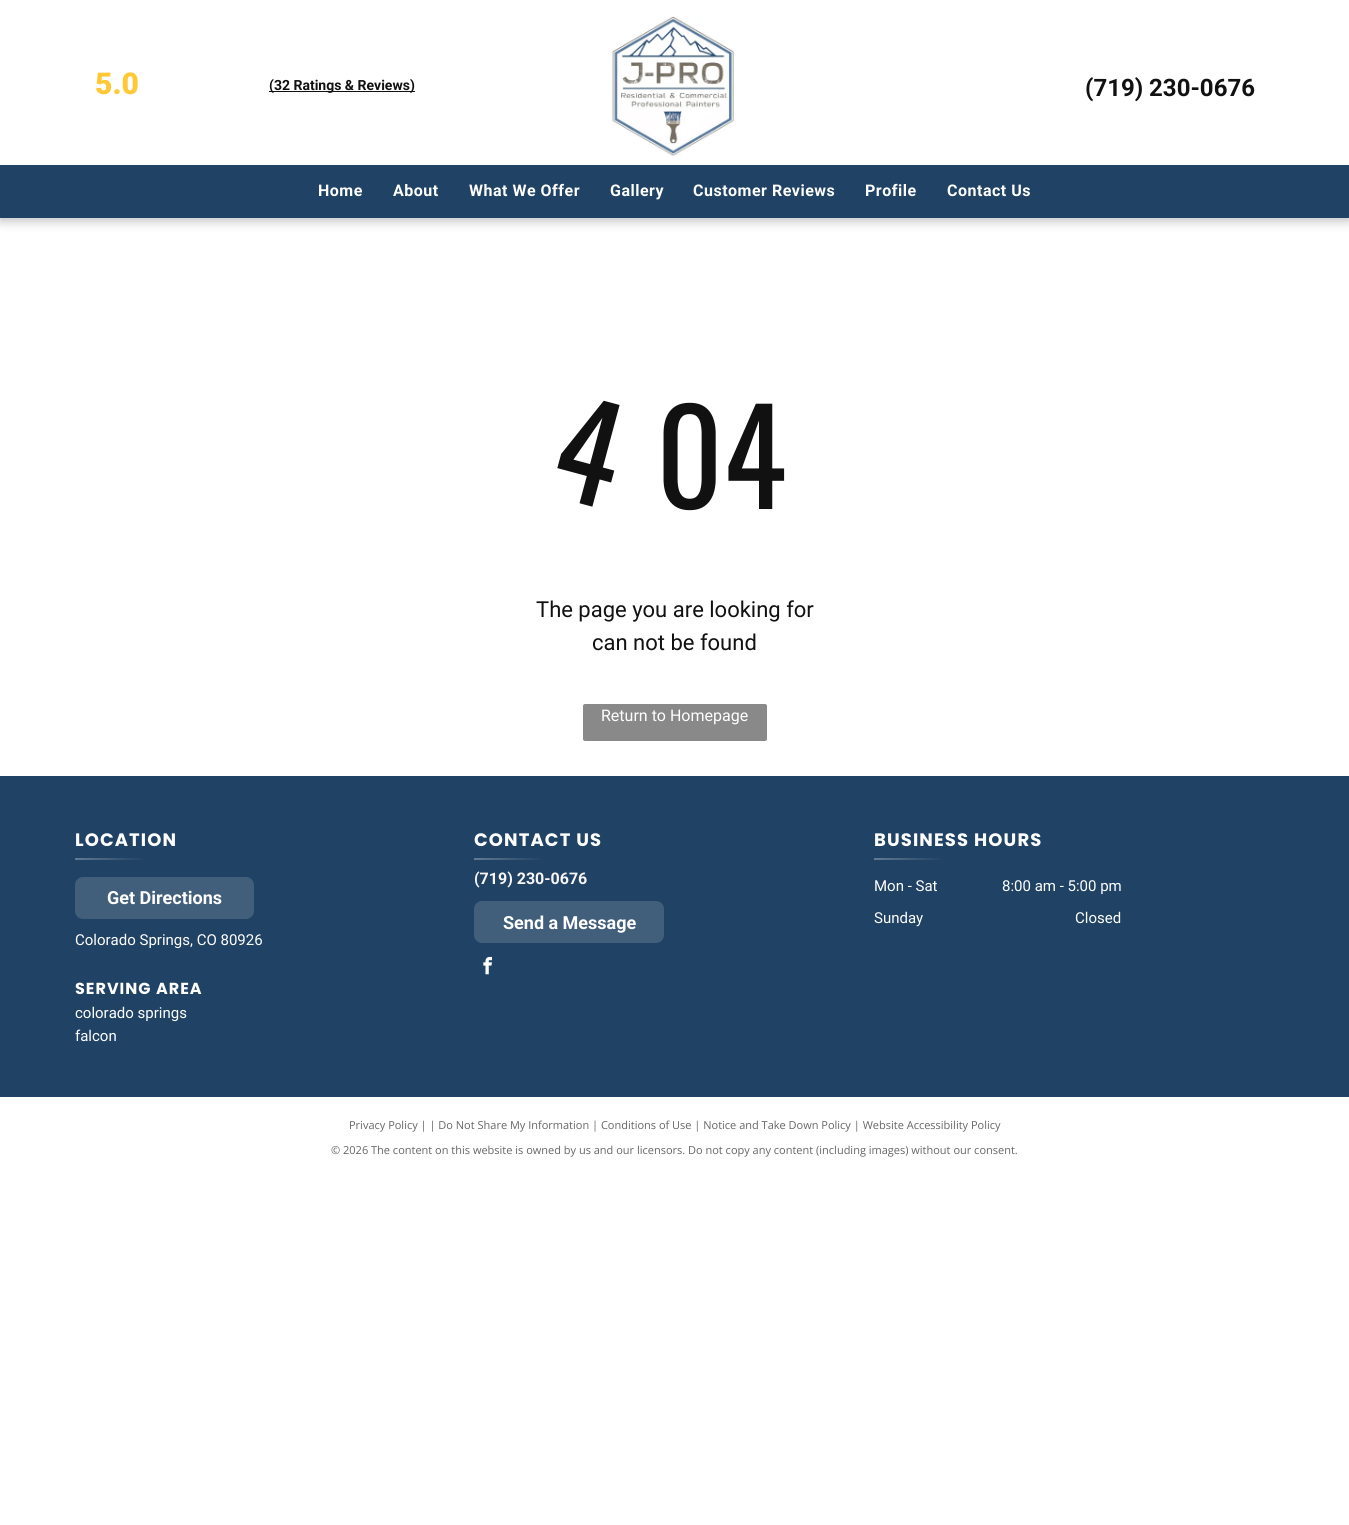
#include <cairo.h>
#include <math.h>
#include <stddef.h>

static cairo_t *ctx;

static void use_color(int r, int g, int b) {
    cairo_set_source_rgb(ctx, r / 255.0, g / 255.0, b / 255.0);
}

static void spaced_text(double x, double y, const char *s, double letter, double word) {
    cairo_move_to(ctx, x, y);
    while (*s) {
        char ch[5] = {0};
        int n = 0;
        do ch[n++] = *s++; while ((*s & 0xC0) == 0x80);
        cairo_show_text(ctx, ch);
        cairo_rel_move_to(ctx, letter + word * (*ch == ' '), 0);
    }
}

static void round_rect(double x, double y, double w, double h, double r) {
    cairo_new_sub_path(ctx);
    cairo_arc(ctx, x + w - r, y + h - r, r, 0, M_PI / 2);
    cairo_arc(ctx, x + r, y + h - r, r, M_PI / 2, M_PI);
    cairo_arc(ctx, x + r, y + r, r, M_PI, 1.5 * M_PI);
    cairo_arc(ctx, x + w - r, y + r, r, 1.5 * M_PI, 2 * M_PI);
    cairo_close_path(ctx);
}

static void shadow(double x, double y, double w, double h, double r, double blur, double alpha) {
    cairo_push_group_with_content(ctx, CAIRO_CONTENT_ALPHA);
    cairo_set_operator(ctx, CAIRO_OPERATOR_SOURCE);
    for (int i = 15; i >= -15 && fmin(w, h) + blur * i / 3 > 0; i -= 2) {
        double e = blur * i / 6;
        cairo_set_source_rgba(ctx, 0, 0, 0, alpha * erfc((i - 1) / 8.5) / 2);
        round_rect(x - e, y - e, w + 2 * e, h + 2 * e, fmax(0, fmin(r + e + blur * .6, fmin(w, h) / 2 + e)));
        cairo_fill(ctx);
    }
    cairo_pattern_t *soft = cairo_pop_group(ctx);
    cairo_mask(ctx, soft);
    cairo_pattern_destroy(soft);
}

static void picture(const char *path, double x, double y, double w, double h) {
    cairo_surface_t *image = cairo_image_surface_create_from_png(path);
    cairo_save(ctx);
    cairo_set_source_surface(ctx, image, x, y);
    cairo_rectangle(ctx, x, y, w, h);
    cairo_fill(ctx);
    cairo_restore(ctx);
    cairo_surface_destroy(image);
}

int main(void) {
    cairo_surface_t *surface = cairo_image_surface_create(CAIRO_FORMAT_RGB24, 1349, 1525);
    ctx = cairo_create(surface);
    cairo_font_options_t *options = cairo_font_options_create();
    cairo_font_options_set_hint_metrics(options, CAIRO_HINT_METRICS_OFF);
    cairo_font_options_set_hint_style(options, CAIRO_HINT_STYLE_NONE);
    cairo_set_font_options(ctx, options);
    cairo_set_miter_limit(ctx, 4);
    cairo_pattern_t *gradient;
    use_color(255, 255, 255);
    cairo_paint(ctx);
    use_color(0, 0, 0);
    shadow(0, 3, 1349, 218, 0, 5.5, 0.25);
    use_color(32, 66, 100);
    cairo_rectangle(ctx, 0, 165, 1349, 53);
    cairo_fill(ctx);
    use_color(255, 255, 255);
    cairo_rectangle(ctx, 0, 0, 1349, 165);
    cairo_fill(ctx);
    cairo_select_font_face(ctx, "Roboto Black", CAIRO_FONT_SLANT_NORMAL, CAIRO_FONT_WEIGHT_NORMAL);
    cairo_set_font_size(ctx, 30);
    use_color(255, 200, 52);
    cairo_move_to(ctx, 95, 94);
    cairo_show_text(ctx, "5.0");
    use_color(17, 17, 17);
    cairo_rectangle(ctx, 269, 91, 146, 1);
    cairo_fill(ctx);
    cairo_select_font_face(ctx, "Roboto", CAIRO_FONT_SLANT_NORMAL, CAIRO_FONT_WEIGHT_BOLD);
    cairo_set_font_size(ctx, 14);
    cairo_move_to(ctx, 269, 90);
    cairo_show_text(ctx, "(32 Ratings & Reviews)");
    picture("img1.png", 612, 16, 122, 140);
    cairo_set_font_size(ctx, 24);
    cairo_move_to(ctx, 1085, 96);
    cairo_show_text(ctx, "(719) 230-0676");
    cairo_set_font_size(ctx, 16);
    use_color(255, 255, 255);
    spaced_text(318, 196, "Home", 0.5, 0);
    spaced_text(393, 196, "About", 0.5, 0);
    spaced_text(469, 196, "What We Offer", 0.5, 0);
    spaced_text(610, 196, "Gallery", 0.5, 0);
    spaced_text(693, 196, "Customer Reviews", 0.5, 0);
    spaced_text(865, 196, "Profile", 0.5, 0);
    spaced_text(947, 196, "Contact Us", 0.5, 0);
    cairo_select_font_face(ctx, "Oswald", CAIRO_FONT_SLANT_NORMAL, CAIRO_FONT_WEIGHT_NORMAL);
    cairo_set_font_size(ctx, 130);
    use_color(17, 17, 17);
    cairo_save(ctx);
    cairo_translate(ctx, 545, 494);
    cairo_rotate(ctx, 15 * M_PI / 180);
    cairo_move_to(ctx, 0, 0);
    cairo_show_text(ctx, "4");
    cairo_restore(ctx);
    cairo_move_to(ctx, 656, 509);
    cairo_show_text(ctx, "04");
    cairo_select_font_face(ctx, "Roboto", CAIRO_FONT_SLANT_NORMAL, CAIRO_FONT_WEIGHT_NORMAL);
    cairo_set_font_size(ctx, 22);
    cairo_move_to(ctx, 536, 617);
    cairo_show_text(ctx, "The page you are looking for");
    cairo_move_to(ctx, 592, 650);
    cairo_show_text(ctx, "can not be found");
    use_color(137, 137, 137);
    round_rect(583, 704, 184, 37, 2);
    cairo_fill(ctx);
    cairo_set_font_size(ctx, 16);
    use_color(255, 255, 255);
    cairo_move_to(ctx, 601, 721);
    cairo_show_text(ctx, "Return to Homepage");
    use_color(32, 66, 100);
    cairo_rectangle(ctx, 0, 776, 1349, 321);
    cairo_fill(ctx);
    cairo_select_font_face(ctx, "Poppins", CAIRO_FONT_SLANT_NORMAL, CAIRO_FONT_WEIGHT_BOLD);
    cairo_set_font_size(ctx, 18);
    use_color(255, 255, 255);
    spaced_text(75, 846, "LOCATION", 1.1, 0);
    gradient = cairo_pattern_create_linear(75, 859, 145, 859);
    cairo_pattern_add_color_stop_rgba(gradient, 0, 0.388, 0.482, 0.576, 1);
    cairo_pattern_add_color_stop_rgba(gradient, 1, 0.125, 0.259, 0.392, 1);
    cairo_set_source(ctx, gradient);
    cairo_pattern_destroy(gradient);
    cairo_rectangle(ctx, 75, 858, 70, 2);
    cairo_fill(ctx);
    use_color(65, 94, 123);
    round_rect(75, 877, 179, 42, 8);
    cairo_fill(ctx);
    cairo_select_font_face(ctx, "Roboto", CAIRO_FONT_SLANT_NORMAL, CAIRO_FONT_WEIGHT_BOLD);
    use_color(255, 255, 255);
    cairo_move_to(ctx, 107, 904);
    cairo_show_text(ctx, "Get Directions");
    cairo_select_font_face(ctx, "Roboto", CAIRO_FONT_SLANT_NORMAL, CAIRO_FONT_WEIGHT_NORMAL);
    cairo_set_font_size(ctx, 15);
    cairo_move_to(ctx, 75, 945);
    cairo_show_text(ctx, "Colorado Springs");
    cairo_move_to(ctx, 190, 945);
    cairo_show_text(ctx, ", CO 80926");
    cairo_select_font_face(ctx, "Poppins", CAIRO_FONT_SLANT_NORMAL, CAIRO_FONT_WEIGHT_BOLD);
    cairo_set_font_size(ctx, 16);
    spaced_text(75, 994, "SERVING AREA", 1, 0);
    cairo_select_font_face(ctx, "Roboto", CAIRO_FONT_SLANT_NORMAL, CAIRO_FONT_WEIGHT_NORMAL);
    cairo_set_font_size(ctx, 15);
    cairo_move_to(ctx, 75, 1018);
    cairo_show_text(ctx, "colorado springs");
    cairo_move_to(ctx, 75, 1041);
    cairo_show_text(ctx, "falcon");
    cairo_select_font_face(ctx, "Poppins", CAIRO_FONT_SLANT_NORMAL, CAIRO_FONT_WEIGHT_BOLD);
    cairo_set_font_size(ctx, 18);
    spaced_text(474, 846, "CONTACT US", 1.1, 0);
    gradient = cairo_pattern_create_linear(474, 859, 544, 859);
    cairo_pattern_add_color_stop_rgba(gradient, 0, 0.388, 0.482, 0.576, 1);
    cairo_pattern_add_color_stop_rgba(gradient, 1, 0.125, 0.259, 0.392, 1);
    cairo_set_source(ctx, gradient);
    cairo_pattern_destroy(gradient);
    cairo_rectangle(ctx, 474, 858, 70, 2);
    cairo_fill(ctx);
    cairo_select_font_face(ctx, "Roboto", CAIRO_FONT_SLANT_NORMAL, CAIRO_FONT_WEIGHT_BOLD);
    cairo_set_font_size(ctx, 16);
    use_color(248, 246, 246);
    cairo_move_to(ctx, 474, 884);
    cairo_show_text(ctx, "(719) 230-0676");
    use_color(65, 94, 123);
    round_rect(474, 901, 190, 42, 8);
    cairo_fill(ctx);
    cairo_set_font_size(ctx, 18);
    use_color(255, 255, 255);
    cairo_move_to(ctx, 503, 929);
    cairo_show_text(ctx, "Send a Message");
    picture("img2.png", 483, 956, 9, 19);
    cairo_select_font_face(ctx, "Poppins", CAIRO_FONT_SLANT_NORMAL, CAIRO_FONT_WEIGHT_BOLD);
    spaced_text(874, 846, "BUSINESS HOURS", 1.1, 0);
    gradient = cairo_pattern_create_linear(874, 859, 944, 859);
    cairo_pattern_add_color_stop_rgba(gradient, 0, 0.388, 0.482, 0.576, 1);
    cairo_pattern_add_color_stop_rgba(gradient, 1, 0.125, 0.259, 0.392, 1);
    cairo_set_source(ctx, gradient);
    cairo_pattern_destroy(gradient);
    cairo_rectangle(ctx, 874, 858, 70, 2);
    cairo_fill(ctx);
    cairo_select_font_face(ctx, "Roboto", CAIRO_FONT_SLANT_NORMAL, CAIRO_FONT_WEIGHT_NORMAL);
    cairo_set_font_size(ctx, 15);
    use_color(255, 255, 255);
    cairo_move_to(ctx, 874, 891);
    cairo_show_text(ctx, "Mon - Sat");
    cairo_move_to(ctx, 1002, 891);
    cairo_show_text(ctx, "8:00 am - 5:00 pm");
    cairo_move_to(ctx, 874, 923);
    cairo_show_text(ctx, "Sunday");
    cairo_move_to(ctx, 1075, 923);
    cairo_show_text(ctx, "Closed");
    cairo_select_font_face(ctx, "Open Sans", CAIRO_FONT_SLANT_NORMAL, CAIRO_FONT_WEIGHT_NORMAL);
    cairo_set_font_size(ctx, 11);
    use_color(102, 102, 102);
    cairo_move_to(ctx, 349, 1129);
    cairo_show_text(ctx, "Privacy Policy | | Do Not Share My Information | Conditions of Use | Notice and Take Down Policy | Website Accessibility Policy");
    cairo_move_to(ctx, 331, 1154);
    cairo_show_text(ctx, "© 2026 The content on this website is owned by us and our licensors. Do not copy any content (including images) without our consent.");
    cairo_surface_write_to_png(surface, "result.png");
    cairo_font_options_destroy(options);
    cairo_destroy(ctx);
    cairo_surface_destroy(surface);
    return 0;
}
